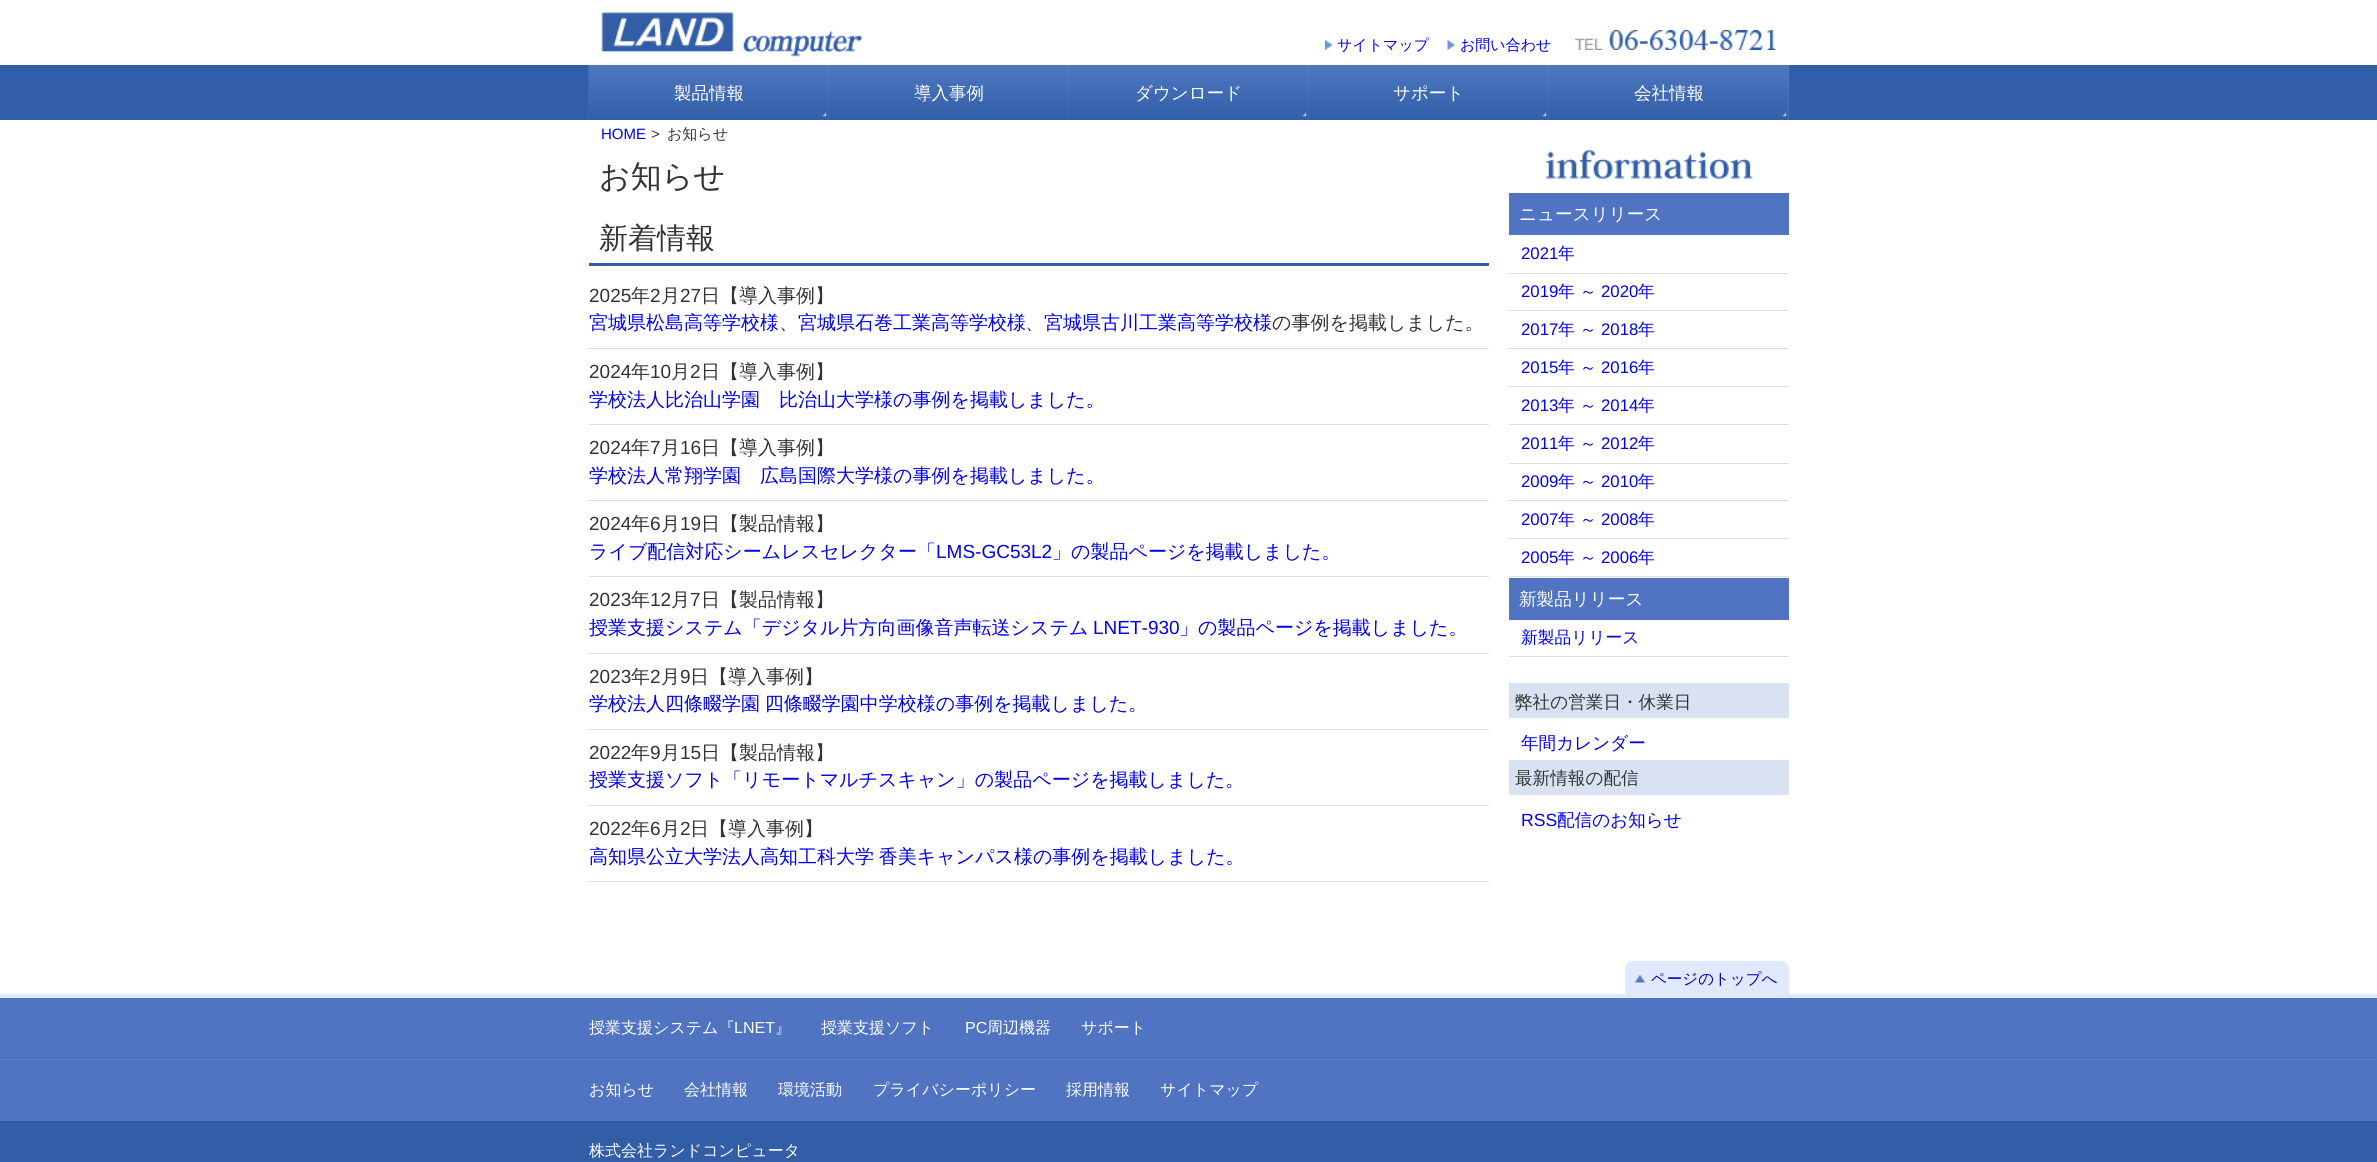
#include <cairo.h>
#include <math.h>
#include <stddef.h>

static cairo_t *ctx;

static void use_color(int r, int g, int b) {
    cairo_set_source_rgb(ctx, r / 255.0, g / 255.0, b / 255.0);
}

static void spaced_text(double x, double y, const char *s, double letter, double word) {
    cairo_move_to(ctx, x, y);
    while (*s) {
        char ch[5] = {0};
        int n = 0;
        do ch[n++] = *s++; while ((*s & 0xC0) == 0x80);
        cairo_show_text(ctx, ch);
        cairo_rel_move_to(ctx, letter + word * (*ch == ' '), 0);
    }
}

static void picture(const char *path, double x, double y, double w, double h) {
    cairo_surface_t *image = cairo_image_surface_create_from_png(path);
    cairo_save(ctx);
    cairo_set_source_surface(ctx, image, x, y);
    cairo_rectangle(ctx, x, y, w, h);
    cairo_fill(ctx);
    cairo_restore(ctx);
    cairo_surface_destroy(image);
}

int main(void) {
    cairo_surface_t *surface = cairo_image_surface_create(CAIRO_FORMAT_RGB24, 2377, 1162);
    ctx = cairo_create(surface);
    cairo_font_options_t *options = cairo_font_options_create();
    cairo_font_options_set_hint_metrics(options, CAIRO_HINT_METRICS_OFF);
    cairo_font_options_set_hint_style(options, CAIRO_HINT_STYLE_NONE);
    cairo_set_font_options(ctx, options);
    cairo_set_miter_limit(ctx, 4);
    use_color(255, 255, 255);
    cairo_paint(ctx);
    picture("img1.png", 601, 12, 262, 45);
    picture("img2.png", 1325, 40, 8, 10);
    cairo_select_font_face(ctx, "WenQuanYi Zen Hei Medium", CAIRO_FONT_SLANT_NORMAL, CAIRO_FONT_WEIGHT_NORMAL);
    cairo_set_font_size(ctx, 15);
    use_color(0, 0, 238);
    cairo_move_to(ctx, 1337, 50);
    cairo_show_text(ctx, "サイトマップ");
    picture("img3.png", 1447, 40, 8, 10);
    cairo_move_to(ctx, 1460, 50);
    cairo_show_text(ctx, "お問い合わせ");
    picture("img4.png", 1575, 38, 28, 12);
    picture("img5.png", 1608, 30, 168, 20);
    use_color(50, 93, 167);
    cairo_rectangle(ctx, 0, 65, 2377, 55);
    cairo_fill(ctx);
    picture("img6.png", 588, 65, 961, 55);
    picture("img7.png", 589, 65, 240, 55);
    picture("img8.png", 822, 112, 5, 5);
    cairo_set_font_size(ctx, 17.5);
    use_color(255, 255, 255);
    cairo_move_to(ctx, 674, 99);
    cairo_show_text(ctx, "製品情報");
    picture("img9.png", 828, 65, 1, 55);
    picture("img10.png", 828, 65, 241, 55);
    cairo_move_to(ctx, 914, 99);
    cairo_show_text(ctx, "導入事例");
    picture("img9.png", 1068, 65, 1, 55);
    picture("img10.png", 1068, 65, 241, 55);
    picture("img8.png", 1302, 112, 5, 5);
    cairo_move_to(ctx, 1135, 99);
    cairo_show_text(ctx, "ダウンロード");
    picture("img9.png", 1308, 65, 1, 55);
    picture("img10.png", 1308, 65, 241, 55);
    picture("img8.png", 1542, 112, 5, 5);
    cairo_move_to(ctx, 1393, 99);
    cairo_show_text(ctx, "サポート");
    picture("img9.png", 1548, 65, 1, 55);
    use_color(91, 125, 186);
    cairo_rectangle(ctx, 1788, 65, 1, 55);
    cairo_fill(ctx);
    picture("img11.png", 1548, 65, 241, 55);
    picture("img8.png", 1782, 112, 5, 5);
    use_color(255, 255, 255);
    cairo_move_to(ctx, 1634, 99);
    cairo_show_text(ctx, "会社情報");
    cairo_select_font_face(ctx, "Liberation Sans", CAIRO_FONT_SLANT_NORMAL, CAIRO_FONT_WEIGHT_NORMAL);
    cairo_set_font_size(ctx, 15);
    use_color(0, 0, 238);
    cairo_move_to(ctx, 601, 139);
    cairo_show_text(ctx, "HOME");
    use_color(51, 51, 51);
    cairo_move_to(ctx, 651, 139);
    cairo_show_text(ctx, ">");
    cairo_select_font_face(ctx, "WenQuanYi Zen Hei Medium", CAIRO_FONT_SLANT_NORMAL, CAIRO_FONT_WEIGHT_NORMAL);
    cairo_move_to(ctx, 667, 139);
    cairo_show_text(ctx, "お知らせ");
    use_color(255, 255, 255);
    cairo_rectangle(ctx, 670, 141, 7, 1);
    cairo_fill(ctx);
    cairo_set_font_size(ctx, 31);
    use_color(51, 51, 51);
    cairo_move_to(ctx, 599, 187);
    cairo_show_text(ctx, "お知らせ");
    use_color(50, 93, 167);
    cairo_rectangle(ctx, 589, 263, 900, 3);
    cairo_fill(ctx);
    cairo_set_font_size(ctx, 29);
    use_color(51, 51, 51);
    cairo_move_to(ctx, 599, 248);
    cairo_show_text(ctx, "新着情報");
    cairo_select_font_face(ctx, "Liberation Sans", CAIRO_FONT_SLANT_NORMAL, CAIRO_FONT_WEIGHT_NORMAL);
    cairo_set_font_size(ctx, 19);
    cairo_move_to(ctx, 589, 302);
    cairo_show_text(ctx, "2025");
    cairo_select_font_face(ctx, "WenQuanYi Zen Hei Medium", CAIRO_FONT_SLANT_NORMAL, CAIRO_FONT_WEIGHT_NORMAL);
    cairo_move_to(ctx, 631, 302);
    cairo_show_text(ctx, "年");
    cairo_select_font_face(ctx, "Liberation Sans", CAIRO_FONT_SLANT_NORMAL, CAIRO_FONT_WEIGHT_NORMAL);
    cairo_move_to(ctx, 650, 302);
    cairo_show_text(ctx, "2");
    cairo_select_font_face(ctx, "WenQuanYi Zen Hei Medium", CAIRO_FONT_SLANT_NORMAL, CAIRO_FONT_WEIGHT_NORMAL);
    cairo_move_to(ctx, 661, 302);
    cairo_show_text(ctx, "月");
    cairo_select_font_face(ctx, "Liberation Sans", CAIRO_FONT_SLANT_NORMAL, CAIRO_FONT_WEIGHT_NORMAL);
    cairo_move_to(ctx, 680, 302);
    cairo_show_text(ctx, "27");
    cairo_select_font_face(ctx, "WenQuanYi Zen Hei Medium", CAIRO_FONT_SLANT_NORMAL, CAIRO_FONT_WEIGHT_NORMAL);
    cairo_move_to(ctx, 701, 302);
    cairo_show_text(ctx, "日【導入事例】");
    use_color(221, 221, 221);
    cairo_rectangle(ctx, 589, 348, 900, 1);
    cairo_fill(ctx);
    use_color(0, 0, 238);
    cairo_move_to(ctx, 589, 329);
    cairo_show_text(ctx, "宮城県松島高等学校様");
    use_color(51, 51, 51);
    cairo_move_to(ctx, 779, 329);
    cairo_show_text(ctx, "、");
    use_color(0, 0, 238);
    cairo_move_to(ctx, 798, 329);
    cairo_show_text(ctx, "宮城県石巻工業高等学校様");
    use_color(51, 51, 51);
    cairo_move_to(ctx, 1025, 329);
    cairo_show_text(ctx, "、");
    use_color(0, 0, 238);
    cairo_move_to(ctx, 1044, 329);
    cairo_show_text(ctx, "宮城県古川工業高等学校様");
    use_color(51, 51, 51);
    cairo_move_to(ctx, 1272, 329);
    cairo_show_text(ctx, "の事例を掲載しました。");
    cairo_select_font_face(ctx, "Liberation Sans", CAIRO_FONT_SLANT_NORMAL, CAIRO_FONT_WEIGHT_NORMAL);
    cairo_move_to(ctx, 589, 378);
    cairo_show_text(ctx, "2024");
    cairo_select_font_face(ctx, "WenQuanYi Zen Hei Medium", CAIRO_FONT_SLANT_NORMAL, CAIRO_FONT_WEIGHT_NORMAL);
    cairo_move_to(ctx, 631, 378);
    cairo_show_text(ctx, "年");
    cairo_select_font_face(ctx, "Liberation Sans", CAIRO_FONT_SLANT_NORMAL, CAIRO_FONT_WEIGHT_NORMAL);
    cairo_move_to(ctx, 650, 378);
    cairo_show_text(ctx, "10");
    cairo_select_font_face(ctx, "WenQuanYi Zen Hei Medium", CAIRO_FONT_SLANT_NORMAL, CAIRO_FONT_WEIGHT_NORMAL);
    cairo_move_to(ctx, 671, 378);
    cairo_show_text(ctx, "月");
    cairo_select_font_face(ctx, "Liberation Sans", CAIRO_FONT_SLANT_NORMAL, CAIRO_FONT_WEIGHT_NORMAL);
    cairo_move_to(ctx, 690, 378);
    cairo_show_text(ctx, "2");
    cairo_select_font_face(ctx, "WenQuanYi Zen Hei Medium", CAIRO_FONT_SLANT_NORMAL, CAIRO_FONT_WEIGHT_NORMAL);
    cairo_move_to(ctx, 701, 378);
    cairo_show_text(ctx, "日【導入事例】");
    use_color(221, 221, 221);
    cairo_rectangle(ctx, 589, 424, 900, 1);
    cairo_fill(ctx);
    use_color(0, 0, 238);
    cairo_move_to(ctx, 589, 406);
    cairo_show_text(ctx, "学校法人比治山学園　比治山大学様の事例を掲載しました。");
    cairo_select_font_face(ctx, "Liberation Sans", CAIRO_FONT_SLANT_NORMAL, CAIRO_FONT_WEIGHT_NORMAL);
    use_color(51, 51, 51);
    cairo_move_to(ctx, 589, 454);
    cairo_show_text(ctx, "2024");
    cairo_select_font_face(ctx, "WenQuanYi Zen Hei Medium", CAIRO_FONT_SLANT_NORMAL, CAIRO_FONT_WEIGHT_NORMAL);
    cairo_move_to(ctx, 631, 454);
    cairo_show_text(ctx, "年");
    cairo_select_font_face(ctx, "Liberation Sans", CAIRO_FONT_SLANT_NORMAL, CAIRO_FONT_WEIGHT_NORMAL);
    cairo_move_to(ctx, 650, 454);
    cairo_show_text(ctx, "7");
    cairo_select_font_face(ctx, "WenQuanYi Zen Hei Medium", CAIRO_FONT_SLANT_NORMAL, CAIRO_FONT_WEIGHT_NORMAL);
    cairo_move_to(ctx, 661, 454);
    cairo_show_text(ctx, "月");
    cairo_select_font_face(ctx, "Liberation Sans", CAIRO_FONT_SLANT_NORMAL, CAIRO_FONT_WEIGHT_NORMAL);
    cairo_move_to(ctx, 680, 454);
    cairo_show_text(ctx, "16");
    cairo_select_font_face(ctx, "WenQuanYi Zen Hei Medium", CAIRO_FONT_SLANT_NORMAL, CAIRO_FONT_WEIGHT_NORMAL);
    cairo_move_to(ctx, 701, 454);
    cairo_show_text(ctx, "日【導入事例】");
    use_color(221, 221, 221);
    cairo_rectangle(ctx, 589, 500, 900, 1);
    cairo_fill(ctx);
    use_color(0, 0, 238);
    cairo_move_to(ctx, 589, 482);
    cairo_show_text(ctx, "学校法人常翔学園　広島国際大学様の事例を掲載しました。");
    cairo_select_font_face(ctx, "Liberation Sans", CAIRO_FONT_SLANT_NORMAL, CAIRO_FONT_WEIGHT_NORMAL);
    use_color(51, 51, 51);
    cairo_move_to(ctx, 589, 530);
    cairo_show_text(ctx, "2024");
    cairo_select_font_face(ctx, "WenQuanYi Zen Hei Medium", CAIRO_FONT_SLANT_NORMAL, CAIRO_FONT_WEIGHT_NORMAL);
    cairo_move_to(ctx, 631, 530);
    cairo_show_text(ctx, "年");
    cairo_select_font_face(ctx, "Liberation Sans", CAIRO_FONT_SLANT_NORMAL, CAIRO_FONT_WEIGHT_NORMAL);
    cairo_move_to(ctx, 650, 530);
    cairo_show_text(ctx, "6");
    cairo_select_font_face(ctx, "WenQuanYi Zen Hei Medium", CAIRO_FONT_SLANT_NORMAL, CAIRO_FONT_WEIGHT_NORMAL);
    cairo_move_to(ctx, 661, 530);
    cairo_show_text(ctx, "月");
    cairo_select_font_face(ctx, "Liberation Sans", CAIRO_FONT_SLANT_NORMAL, CAIRO_FONT_WEIGHT_NORMAL);
    cairo_move_to(ctx, 680, 530);
    cairo_show_text(ctx, "19");
    cairo_select_font_face(ctx, "WenQuanYi Zen Hei Medium", CAIRO_FONT_SLANT_NORMAL, CAIRO_FONT_WEIGHT_NORMAL);
    cairo_move_to(ctx, 701, 530);
    cairo_show_text(ctx, "日【製品情報】");
    use_color(221, 221, 221);
    cairo_rectangle(ctx, 589, 576, 900, 1);
    cairo_fill(ctx);
    use_color(0, 0, 238);
    cairo_move_to(ctx, 589, 558);
    cairo_show_text(ctx, "ライブ配信対応シームレスセレクター「");
    cairo_select_font_face(ctx, "Liberation Sans", CAIRO_FONT_SLANT_NORMAL, CAIRO_FONT_WEIGHT_NORMAL);
    cairo_move_to(ctx, 936, 558);
    cairo_show_text(ctx, "LMS-GC53L2");
    cairo_select_font_face(ctx, "WenQuanYi Zen Hei Medium", CAIRO_FONT_SLANT_NORMAL, CAIRO_FONT_WEIGHT_NORMAL);
    cairo_move_to(ctx, 1052, 558);
    cairo_show_text(ctx, "」の製品ページを掲載しました。");
    cairo_select_font_face(ctx, "Liberation Sans", CAIRO_FONT_SLANT_NORMAL, CAIRO_FONT_WEIGHT_NORMAL);
    use_color(51, 51, 51);
    cairo_move_to(ctx, 589, 606);
    cairo_show_text(ctx, "2023");
    cairo_select_font_face(ctx, "WenQuanYi Zen Hei Medium", CAIRO_FONT_SLANT_NORMAL, CAIRO_FONT_WEIGHT_NORMAL);
    cairo_move_to(ctx, 631, 606);
    cairo_show_text(ctx, "年");
    cairo_select_font_face(ctx, "Liberation Sans", CAIRO_FONT_SLANT_NORMAL, CAIRO_FONT_WEIGHT_NORMAL);
    cairo_move_to(ctx, 650, 606);
    cairo_show_text(ctx, "12");
    cairo_select_font_face(ctx, "WenQuanYi Zen Hei Medium", CAIRO_FONT_SLANT_NORMAL, CAIRO_FONT_WEIGHT_NORMAL);
    cairo_move_to(ctx, 671, 606);
    cairo_show_text(ctx, "月");
    cairo_select_font_face(ctx, "Liberation Sans", CAIRO_FONT_SLANT_NORMAL, CAIRO_FONT_WEIGHT_NORMAL);
    cairo_move_to(ctx, 690, 606);
    cairo_show_text(ctx, "7");
    cairo_select_font_face(ctx, "WenQuanYi Zen Hei Medium", CAIRO_FONT_SLANT_NORMAL, CAIRO_FONT_WEIGHT_NORMAL);
    cairo_move_to(ctx, 701, 606);
    cairo_show_text(ctx, "日【製品情報】");
    use_color(221, 221, 221);
    cairo_rectangle(ctx, 589, 653, 900, 1);
    cairo_fill(ctx);
    use_color(0, 0, 238);
    cairo_move_to(ctx, 589, 634);
    cairo_show_text(ctx, "授業支援システム「デジタル片方向画像音声転送システム");
    cairo_select_font_face(ctx, "Liberation Sans", CAIRO_FONT_SLANT_NORMAL, CAIRO_FONT_WEIGHT_NORMAL);
    cairo_move_to(ctx, 1093, 634);
    cairo_show_text(ctx, "LNET-930");
    cairo_select_font_face(ctx, "WenQuanYi Zen Hei Medium", CAIRO_FONT_SLANT_NORMAL, CAIRO_FONT_WEIGHT_NORMAL);
    cairo_move_to(ctx, 1179, 634);
    cairo_show_text(ctx, "」の製品ページを掲載しました。");
    cairo_select_font_face(ctx, "Liberation Sans", CAIRO_FONT_SLANT_NORMAL, CAIRO_FONT_WEIGHT_NORMAL);
    use_color(51, 51, 51);
    cairo_move_to(ctx, 589, 683);
    cairo_show_text(ctx, "2023");
    cairo_select_font_face(ctx, "WenQuanYi Zen Hei Medium", CAIRO_FONT_SLANT_NORMAL, CAIRO_FONT_WEIGHT_NORMAL);
    cairo_move_to(ctx, 631, 683);
    cairo_show_text(ctx, "年");
    cairo_select_font_face(ctx, "Liberation Sans", CAIRO_FONT_SLANT_NORMAL, CAIRO_FONT_WEIGHT_NORMAL);
    cairo_move_to(ctx, 650, 683);
    cairo_show_text(ctx, "2");
    cairo_select_font_face(ctx, "WenQuanYi Zen Hei Medium", CAIRO_FONT_SLANT_NORMAL, CAIRO_FONT_WEIGHT_NORMAL);
    cairo_move_to(ctx, 661, 683);
    cairo_show_text(ctx, "月");
    cairo_select_font_face(ctx, "Liberation Sans", CAIRO_FONT_SLANT_NORMAL, CAIRO_FONT_WEIGHT_NORMAL);
    cairo_move_to(ctx, 680, 683);
    cairo_show_text(ctx, "9");
    cairo_select_font_face(ctx, "WenQuanYi Zen Hei Medium", CAIRO_FONT_SLANT_NORMAL, CAIRO_FONT_WEIGHT_NORMAL);
    cairo_move_to(ctx, 690, 683);
    cairo_show_text(ctx, "日【導入事例】");
    use_color(221, 221, 221);
    cairo_rectangle(ctx, 589, 729, 900, 1);
    cairo_fill(ctx);
    use_color(0, 0, 238);
    spaced_text(589, 710, "学校法人四條畷学園 四條畷学園中学校様の事例を掲載しました。", 0, -1);
    cairo_select_font_face(ctx, "Liberation Sans", CAIRO_FONT_SLANT_NORMAL, CAIRO_FONT_WEIGHT_NORMAL);
    use_color(51, 51, 51);
    cairo_move_to(ctx, 589, 759);
    cairo_show_text(ctx, "2022");
    cairo_select_font_face(ctx, "WenQuanYi Zen Hei Medium", CAIRO_FONT_SLANT_NORMAL, CAIRO_FONT_WEIGHT_NORMAL);
    cairo_move_to(ctx, 631, 759);
    cairo_show_text(ctx, "年");
    cairo_select_font_face(ctx, "Liberation Sans", CAIRO_FONT_SLANT_NORMAL, CAIRO_FONT_WEIGHT_NORMAL);
    cairo_move_to(ctx, 650, 759);
    cairo_show_text(ctx, "9");
    cairo_select_font_face(ctx, "WenQuanYi Zen Hei Medium", CAIRO_FONT_SLANT_NORMAL, CAIRO_FONT_WEIGHT_NORMAL);
    cairo_move_to(ctx, 661, 759);
    cairo_show_text(ctx, "月");
    cairo_select_font_face(ctx, "Liberation Sans", CAIRO_FONT_SLANT_NORMAL, CAIRO_FONT_WEIGHT_NORMAL);
    cairo_move_to(ctx, 680, 759);
    cairo_show_text(ctx, "15");
    cairo_select_font_face(ctx, "WenQuanYi Zen Hei Medium", CAIRO_FONT_SLANT_NORMAL, CAIRO_FONT_WEIGHT_NORMAL);
    cairo_move_to(ctx, 701, 759);
    cairo_show_text(ctx, "日【製品情報】");
    use_color(221, 221, 221);
    cairo_rectangle(ctx, 589, 805, 900, 1);
    cairo_fill(ctx);
    use_color(0, 0, 238);
    cairo_move_to(ctx, 589, 786);
    cairo_show_text(ctx, "授業支援ソフト「リモートマルチスキャン」の製品ページを掲載しました。");
    cairo_select_font_face(ctx, "Liberation Sans", CAIRO_FONT_SLANT_NORMAL, CAIRO_FONT_WEIGHT_NORMAL);
    use_color(51, 51, 51);
    cairo_move_to(ctx, 589, 835);
    cairo_show_text(ctx, "2022");
    cairo_select_font_face(ctx, "WenQuanYi Zen Hei Medium", CAIRO_FONT_SLANT_NORMAL, CAIRO_FONT_WEIGHT_NORMAL);
    cairo_move_to(ctx, 631, 835);
    cairo_show_text(ctx, "年");
    cairo_select_font_face(ctx, "Liberation Sans", CAIRO_FONT_SLANT_NORMAL, CAIRO_FONT_WEIGHT_NORMAL);
    cairo_move_to(ctx, 650, 835);
    cairo_show_text(ctx, "6");
    cairo_select_font_face(ctx, "WenQuanYi Zen Hei Medium", CAIRO_FONT_SLANT_NORMAL, CAIRO_FONT_WEIGHT_NORMAL);
    cairo_move_to(ctx, 661, 835);
    cairo_show_text(ctx, "月");
    cairo_select_font_face(ctx, "Liberation Sans", CAIRO_FONT_SLANT_NORMAL, CAIRO_FONT_WEIGHT_NORMAL);
    cairo_move_to(ctx, 680, 835);
    cairo_show_text(ctx, "2");
    cairo_select_font_face(ctx, "WenQuanYi Zen Hei Medium", CAIRO_FONT_SLANT_NORMAL, CAIRO_FONT_WEIGHT_NORMAL);
    cairo_move_to(ctx, 690, 835);
    cairo_show_text(ctx, "日【導入事例】");
    use_color(221, 221, 221);
    cairo_rectangle(ctx, 589, 881, 900, 1);
    cairo_fill(ctx);
    use_color(0, 0, 238);
    spaced_text(589, 863, "高知県公立大学法人高知工科大学 香美キャンパス様の事例を掲載しました。", 0, -1);
    picture("img12.png", 1546, 149, 207, 30);
    use_color(80, 116, 193);
    cairo_rectangle(ctx, 1509, 193, 280, 42);
    cairo_fill(ctx);
    cairo_set_font_size(ctx, 17.6);
    use_color(255, 255, 255);
    cairo_move_to(ctx, 1519, 220);
    cairo_show_text(ctx, "ニュースリリース");
    use_color(221, 221, 221);
    cairo_rectangle(ctx, 1509, 273, 280, 1);
    cairo_fill(ctx);
    cairo_select_font_face(ctx, "Liberation Sans", CAIRO_FONT_SLANT_NORMAL, CAIRO_FONT_WEIGHT_NORMAL);
    cairo_set_font_size(ctx, 16.75);
    use_color(0, 0, 238);
    cairo_move_to(ctx, 1521, 259);
    cairo_show_text(ctx, "2021");
    cairo_select_font_face(ctx, "WenQuanYi Zen Hei Medium", CAIRO_FONT_SLANT_NORMAL, CAIRO_FONT_WEIGHT_NORMAL);
    cairo_move_to(ctx, 1558, 259);
    cairo_show_text(ctx, "年");
    use_color(221, 221, 221);
    cairo_rectangle(ctx, 1509, 310, 280, 1);
    cairo_fill(ctx);
    cairo_select_font_face(ctx, "Liberation Sans", CAIRO_FONT_SLANT_NORMAL, CAIRO_FONT_WEIGHT_NORMAL);
    use_color(0, 0, 238);
    cairo_move_to(ctx, 1521, 297);
    cairo_show_text(ctx, "2019");
    cairo_select_font_face(ctx, "WenQuanYi Zen Hei Medium", CAIRO_FONT_SLANT_NORMAL, CAIRO_FONT_WEIGHT_NORMAL);
    cairo_move_to(ctx, 1558, 297);
    cairo_show_text(ctx, "年 ～");
    cairo_select_font_face(ctx, "Liberation Sans", CAIRO_FONT_SLANT_NORMAL, CAIRO_FONT_WEIGHT_NORMAL);
    cairo_move_to(ctx, 1601, 297);
    cairo_show_text(ctx, "2020");
    cairo_select_font_face(ctx, "WenQuanYi Zen Hei Medium", CAIRO_FONT_SLANT_NORMAL, CAIRO_FONT_WEIGHT_NORMAL);
    cairo_move_to(ctx, 1638, 297);
    cairo_show_text(ctx, "年");
    use_color(221, 221, 221);
    cairo_rectangle(ctx, 1509, 348, 280, 1);
    cairo_fill(ctx);
    cairo_select_font_face(ctx, "Liberation Sans", CAIRO_FONT_SLANT_NORMAL, CAIRO_FONT_WEIGHT_NORMAL);
    use_color(0, 0, 238);
    cairo_move_to(ctx, 1521, 335);
    cairo_show_text(ctx, "2017");
    cairo_select_font_face(ctx, "WenQuanYi Zen Hei Medium", CAIRO_FONT_SLANT_NORMAL, CAIRO_FONT_WEIGHT_NORMAL);
    cairo_move_to(ctx, 1558, 335);
    cairo_show_text(ctx, "年 ～");
    cairo_select_font_face(ctx, "Liberation Sans", CAIRO_FONT_SLANT_NORMAL, CAIRO_FONT_WEIGHT_NORMAL);
    cairo_move_to(ctx, 1601, 335);
    cairo_show_text(ctx, "2018");
    cairo_select_font_face(ctx, "WenQuanYi Zen Hei Medium", CAIRO_FONT_SLANT_NORMAL, CAIRO_FONT_WEIGHT_NORMAL);
    cairo_move_to(ctx, 1638, 335);
    cairo_show_text(ctx, "年");
    use_color(221, 221, 221);
    cairo_rectangle(ctx, 1509, 386, 280, 1);
    cairo_fill(ctx);
    cairo_select_font_face(ctx, "Liberation Sans", CAIRO_FONT_SLANT_NORMAL, CAIRO_FONT_WEIGHT_NORMAL);
    use_color(0, 0, 238);
    cairo_move_to(ctx, 1521, 373);
    cairo_show_text(ctx, "2015");
    cairo_select_font_face(ctx, "WenQuanYi Zen Hei Medium", CAIRO_FONT_SLANT_NORMAL, CAIRO_FONT_WEIGHT_NORMAL);
    cairo_move_to(ctx, 1558, 373);
    cairo_show_text(ctx, "年 ～");
    cairo_select_font_face(ctx, "Liberation Sans", CAIRO_FONT_SLANT_NORMAL, CAIRO_FONT_WEIGHT_NORMAL);
    cairo_move_to(ctx, 1601, 373);
    cairo_show_text(ctx, "2016");
    cairo_select_font_face(ctx, "WenQuanYi Zen Hei Medium", CAIRO_FONT_SLANT_NORMAL, CAIRO_FONT_WEIGHT_NORMAL);
    cairo_move_to(ctx, 1638, 373);
    cairo_show_text(ctx, "年");
    use_color(221, 221, 221);
    cairo_rectangle(ctx, 1509, 424, 280, 1);
    cairo_fill(ctx);
    cairo_select_font_face(ctx, "Liberation Sans", CAIRO_FONT_SLANT_NORMAL, CAIRO_FONT_WEIGHT_NORMAL);
    use_color(0, 0, 238);
    cairo_move_to(ctx, 1521, 411);
    cairo_show_text(ctx, "2013");
    cairo_select_font_face(ctx, "WenQuanYi Zen Hei Medium", CAIRO_FONT_SLANT_NORMAL, CAIRO_FONT_WEIGHT_NORMAL);
    cairo_move_to(ctx, 1558, 411);
    cairo_show_text(ctx, "年 ～");
    cairo_select_font_face(ctx, "Liberation Sans", CAIRO_FONT_SLANT_NORMAL, CAIRO_FONT_WEIGHT_NORMAL);
    cairo_move_to(ctx, 1601, 411);
    cairo_show_text(ctx, "2014");
    cairo_select_font_face(ctx, "WenQuanYi Zen Hei Medium", CAIRO_FONT_SLANT_NORMAL, CAIRO_FONT_WEIGHT_NORMAL);
    cairo_move_to(ctx, 1638, 411);
    cairo_show_text(ctx, "年");
    use_color(221, 221, 221);
    cairo_rectangle(ctx, 1509, 463, 280, 1);
    cairo_fill(ctx);
    cairo_select_font_face(ctx, "Liberation Sans", CAIRO_FONT_SLANT_NORMAL, CAIRO_FONT_WEIGHT_NORMAL);
    use_color(0, 0, 238);
    cairo_move_to(ctx, 1521, 449);
    cairo_show_text(ctx, "2011");
    cairo_select_font_face(ctx, "WenQuanYi Zen Hei Medium", CAIRO_FONT_SLANT_NORMAL, CAIRO_FONT_WEIGHT_NORMAL);
    cairo_move_to(ctx, 1558, 449);
    cairo_show_text(ctx, "年 ～");
    cairo_select_font_face(ctx, "Liberation Sans", CAIRO_FONT_SLANT_NORMAL, CAIRO_FONT_WEIGHT_NORMAL);
    cairo_move_to(ctx, 1601, 449);
    cairo_show_text(ctx, "2012");
    cairo_select_font_face(ctx, "WenQuanYi Zen Hei Medium", CAIRO_FONT_SLANT_NORMAL, CAIRO_FONT_WEIGHT_NORMAL);
    cairo_move_to(ctx, 1638, 449);
    cairo_show_text(ctx, "年");
    use_color(221, 221, 221);
    cairo_rectangle(ctx, 1509, 500, 280, 1);
    cairo_fill(ctx);
    cairo_select_font_face(ctx, "Liberation Sans", CAIRO_FONT_SLANT_NORMAL, CAIRO_FONT_WEIGHT_NORMAL);
    use_color(0, 0, 238);
    cairo_move_to(ctx, 1521, 487);
    cairo_show_text(ctx, "2009");
    cairo_select_font_face(ctx, "WenQuanYi Zen Hei Medium", CAIRO_FONT_SLANT_NORMAL, CAIRO_FONT_WEIGHT_NORMAL);
    cairo_move_to(ctx, 1558, 487);
    cairo_show_text(ctx, "年 ～");
    cairo_select_font_face(ctx, "Liberation Sans", CAIRO_FONT_SLANT_NORMAL, CAIRO_FONT_WEIGHT_NORMAL);
    cairo_move_to(ctx, 1601, 487);
    cairo_show_text(ctx, "2010");
    cairo_select_font_face(ctx, "WenQuanYi Zen Hei Medium", CAIRO_FONT_SLANT_NORMAL, CAIRO_FONT_WEIGHT_NORMAL);
    cairo_move_to(ctx, 1638, 487);
    cairo_show_text(ctx, "年");
    use_color(221, 221, 221);
    cairo_rectangle(ctx, 1509, 538, 280, 1);
    cairo_fill(ctx);
    cairo_select_font_face(ctx, "Liberation Sans", CAIRO_FONT_SLANT_NORMAL, CAIRO_FONT_WEIGHT_NORMAL);
    use_color(0, 0, 238);
    cairo_move_to(ctx, 1521, 525);
    cairo_show_text(ctx, "2007");
    cairo_select_font_face(ctx, "WenQuanYi Zen Hei Medium", CAIRO_FONT_SLANT_NORMAL, CAIRO_FONT_WEIGHT_NORMAL);
    cairo_move_to(ctx, 1558, 525);
    cairo_show_text(ctx, "年 ～");
    cairo_select_font_face(ctx, "Liberation Sans", CAIRO_FONT_SLANT_NORMAL, CAIRO_FONT_WEIGHT_NORMAL);
    cairo_move_to(ctx, 1601, 525);
    cairo_show_text(ctx, "2008");
    cairo_select_font_face(ctx, "WenQuanYi Zen Hei Medium", CAIRO_FONT_SLANT_NORMAL, CAIRO_FONT_WEIGHT_NORMAL);
    cairo_move_to(ctx, 1638, 525);
    cairo_show_text(ctx, "年");
    use_color(221, 221, 221);
    cairo_rectangle(ctx, 1509, 576, 280, 1);
    cairo_fill(ctx);
    cairo_select_font_face(ctx, "Liberation Sans", CAIRO_FONT_SLANT_NORMAL, CAIRO_FONT_WEIGHT_NORMAL);
    use_color(0, 0, 238);
    cairo_move_to(ctx, 1521, 563);
    cairo_show_text(ctx, "2005");
    cairo_select_font_face(ctx, "WenQuanYi Zen Hei Medium", CAIRO_FONT_SLANT_NORMAL, CAIRO_FONT_WEIGHT_NORMAL);
    cairo_move_to(ctx, 1558, 563);
    cairo_show_text(ctx, "年 ～");
    cairo_select_font_face(ctx, "Liberation Sans", CAIRO_FONT_SLANT_NORMAL, CAIRO_FONT_WEIGHT_NORMAL);
    cairo_move_to(ctx, 1601, 563);
    cairo_show_text(ctx, "2006");
    cairo_select_font_face(ctx, "WenQuanYi Zen Hei Medium", CAIRO_FONT_SLANT_NORMAL, CAIRO_FONT_WEIGHT_NORMAL);
    cairo_move_to(ctx, 1638, 563);
    cairo_show_text(ctx, "年");
    use_color(80, 116, 193);
    cairo_rectangle(ctx, 1509, 578, 280, 42);
    cairo_fill(ctx);
    cairo_set_font_size(ctx, 17.6);
    use_color(255, 255, 255);
    cairo_move_to(ctx, 1519, 605);
    cairo_show_text(ctx, "新製品リリース");
    use_color(221, 221, 221);
    cairo_rectangle(ctx, 1509, 656, 280, 1);
    cairo_fill(ctx);
    cairo_set_font_size(ctx, 16.75);
    use_color(0, 0, 238);
    cairo_move_to(ctx, 1521, 643);
    cairo_show_text(ctx, "新製品リリース");
    use_color(217, 226, 243);
    cairo_rectangle(ctx, 1509, 683, 280, 35);
    cairo_fill(ctx);
    cairo_set_font_size(ctx, 17.6);
    use_color(51, 51, 51);
    cairo_move_to(ctx, 1515, 708);
    cairo_show_text(ctx, "弊社の営業日・休業日");
    use_color(0, 0, 238);
    cairo_move_to(ctx, 1521, 749);
    cairo_show_text(ctx, "年間カレンダー");
    use_color(217, 226, 243);
    cairo_rectangle(ctx, 1509, 760, 280, 35);
    cairo_fill(ctx);
    use_color(51, 51, 51);
    cairo_move_to(ctx, 1515, 784);
    cairo_show_text(ctx, "最新情報の配信");
    cairo_select_font_face(ctx, "Liberation Sans", CAIRO_FONT_SLANT_NORMAL, CAIRO_FONT_WEIGHT_NORMAL);
    use_color(0, 0, 238);
    cairo_move_to(ctx, 1521, 826);
    cairo_show_text(ctx, "RSS");
    cairo_select_font_face(ctx, "WenQuanYi Zen Hei Medium", CAIRO_FONT_SLANT_NORMAL, CAIRO_FONT_WEIGHT_NORMAL);
    cairo_move_to(ctx, 1557, 826);
    cairo_show_text(ctx, "配信のお知らせ");
    use_color(224, 233, 255);
    cairo_new_path(ctx);
    cairo_move_to(ctx, 1633, 961);
    cairo_line_to(ctx, 1781, 961);
    cairo_curve_to(ctx, 1785.5, 961, 1789, 964.5, 1789, 969);
    cairo_line_to(ctx, 1789, 994);
    cairo_line_to(ctx, 1625, 994);
    cairo_line_to(ctx, 1625, 969);
    cairo_curve_to(ctx, 1625, 964.5, 1628.5, 961, 1633, 961);
    cairo_close_path(ctx);
    cairo_fill(ctx);
    picture("img13.png", 1635, 975, 10, 8);
    cairo_set_font_size(ctx, 15.5);
    use_color(0, 0, 204);
    cairo_move_to(ctx, 1651, 984);
    cairo_show_text(ctx, "ページのトップへ");
    use_color(50, 93, 167);
    cairo_rectangle(ctx, 0, 1121, 2377, 41);
    cairo_fill(ctx);
    use_color(224, 233, 255);
    cairo_rectangle(ctx, 0, 994, 2377, 4);
    cairo_fill(ctx);
    use_color(80, 116, 193);
    cairo_rectangle(ctx, 0, 998, 2377, 61);
    cairo_fill(ctx);
    cairo_set_font_size(ctx, 16);
    use_color(255, 255, 255);
    cairo_move_to(ctx, 589, 1033);
    cairo_show_text(ctx, "授業支援システム『");
    cairo_select_font_face(ctx, "Liberation Sans", CAIRO_FONT_SLANT_NORMAL, CAIRO_FONT_WEIGHT_NORMAL);
    cairo_move_to(ctx, 734, 1033);
    cairo_show_text(ctx, "LNET");
    cairo_select_font_face(ctx, "WenQuanYi Zen Hei Medium", CAIRO_FONT_SLANT_NORMAL, CAIRO_FONT_WEIGHT_NORMAL);
    cairo_move_to(ctx, 775, 1033);
    cairo_show_text(ctx, "』");
    cairo_move_to(ctx, 821, 1033);
    cairo_show_text(ctx, "授業支援ソフト");
    cairo_select_font_face(ctx, "Liberation Sans", CAIRO_FONT_SLANT_NORMAL, CAIRO_FONT_WEIGHT_NORMAL);
    cairo_move_to(ctx, 965, 1033);
    cairo_show_text(ctx, "PC");
    cairo_select_font_face(ctx, "WenQuanYi Zen Hei Medium", CAIRO_FONT_SLANT_NORMAL, CAIRO_FONT_WEIGHT_NORMAL);
    cairo_move_to(ctx, 987, 1033);
    cairo_show_text(ctx, "周辺機器");
    cairo_move_to(ctx, 1081, 1033);
    cairo_show_text(ctx, "サポート");
    use_color(80, 116, 193);
    cairo_rectangle(ctx, 0, 1060, 2377, 61);
    cairo_fill(ctx);
    use_color(94, 129, 207);
    cairo_rectangle(ctx, 0, 1059, 2377, 1);
    cairo_fill(ctx);
    use_color(255, 255, 255);
    cairo_move_to(ctx, 589, 1095);
    cairo_show_text(ctx, "お知らせ");
    cairo_move_to(ctx, 684, 1095);
    cairo_show_text(ctx, "会社情報");
    cairo_move_to(ctx, 778, 1095);
    cairo_show_text(ctx, "環境活動");
    cairo_move_to(ctx, 873, 1095);
    cairo_show_text(ctx, "プライバシーポリシー");
    cairo_move_to(ctx, 1066, 1095);
    cairo_show_text(ctx, "採用情報");
    cairo_move_to(ctx, 1160, 1095);
    cairo_show_text(ctx, "サイトマップ");
    cairo_move_to(ctx, 589, 1156);
    cairo_show_text(ctx, "株式会社ランドコンピュータ");
    cairo_surface_write_to_png(surface, "result.png");
    cairo_font_options_destroy(options);
    cairo_destroy(ctx);
    cairo_surface_destroy(surface);
    return 0;
}
